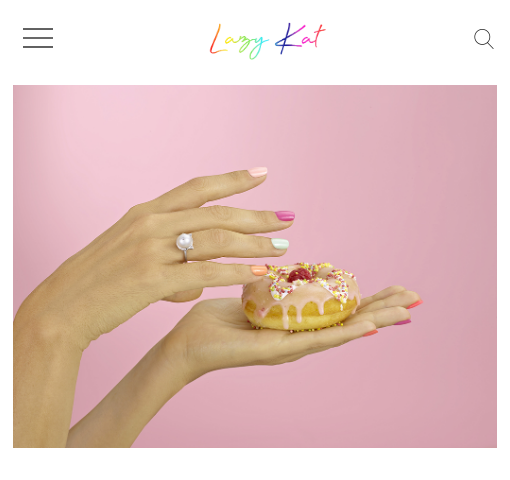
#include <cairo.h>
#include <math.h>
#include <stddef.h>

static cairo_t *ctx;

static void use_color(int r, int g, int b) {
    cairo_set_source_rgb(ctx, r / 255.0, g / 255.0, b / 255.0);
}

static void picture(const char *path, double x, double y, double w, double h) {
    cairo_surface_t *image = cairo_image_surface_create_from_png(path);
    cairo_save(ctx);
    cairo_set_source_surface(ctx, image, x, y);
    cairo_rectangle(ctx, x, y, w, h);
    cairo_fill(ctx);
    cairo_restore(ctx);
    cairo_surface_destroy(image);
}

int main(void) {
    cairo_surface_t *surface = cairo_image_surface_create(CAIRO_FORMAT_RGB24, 510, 480);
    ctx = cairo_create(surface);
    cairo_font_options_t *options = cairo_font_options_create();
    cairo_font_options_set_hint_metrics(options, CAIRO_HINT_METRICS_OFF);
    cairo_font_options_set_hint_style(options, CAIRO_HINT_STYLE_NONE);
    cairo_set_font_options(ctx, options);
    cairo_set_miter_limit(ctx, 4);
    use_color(255, 255, 255);
    cairo_paint(ctx);
    picture("img1.png", 23, 28, 30, 20);
    picture("img2.png", 209, 22, 117, 38);
    picture("img3.png", 474, 29, 20, 20);
    picture("img4.png", 13, 85, 484, 363);
    cairo_surface_write_to_png(surface, "result.png");
    cairo_font_options_destroy(options);
    cairo_destroy(ctx);
    cairo_surface_destroy(surface);
    return 0;
}
